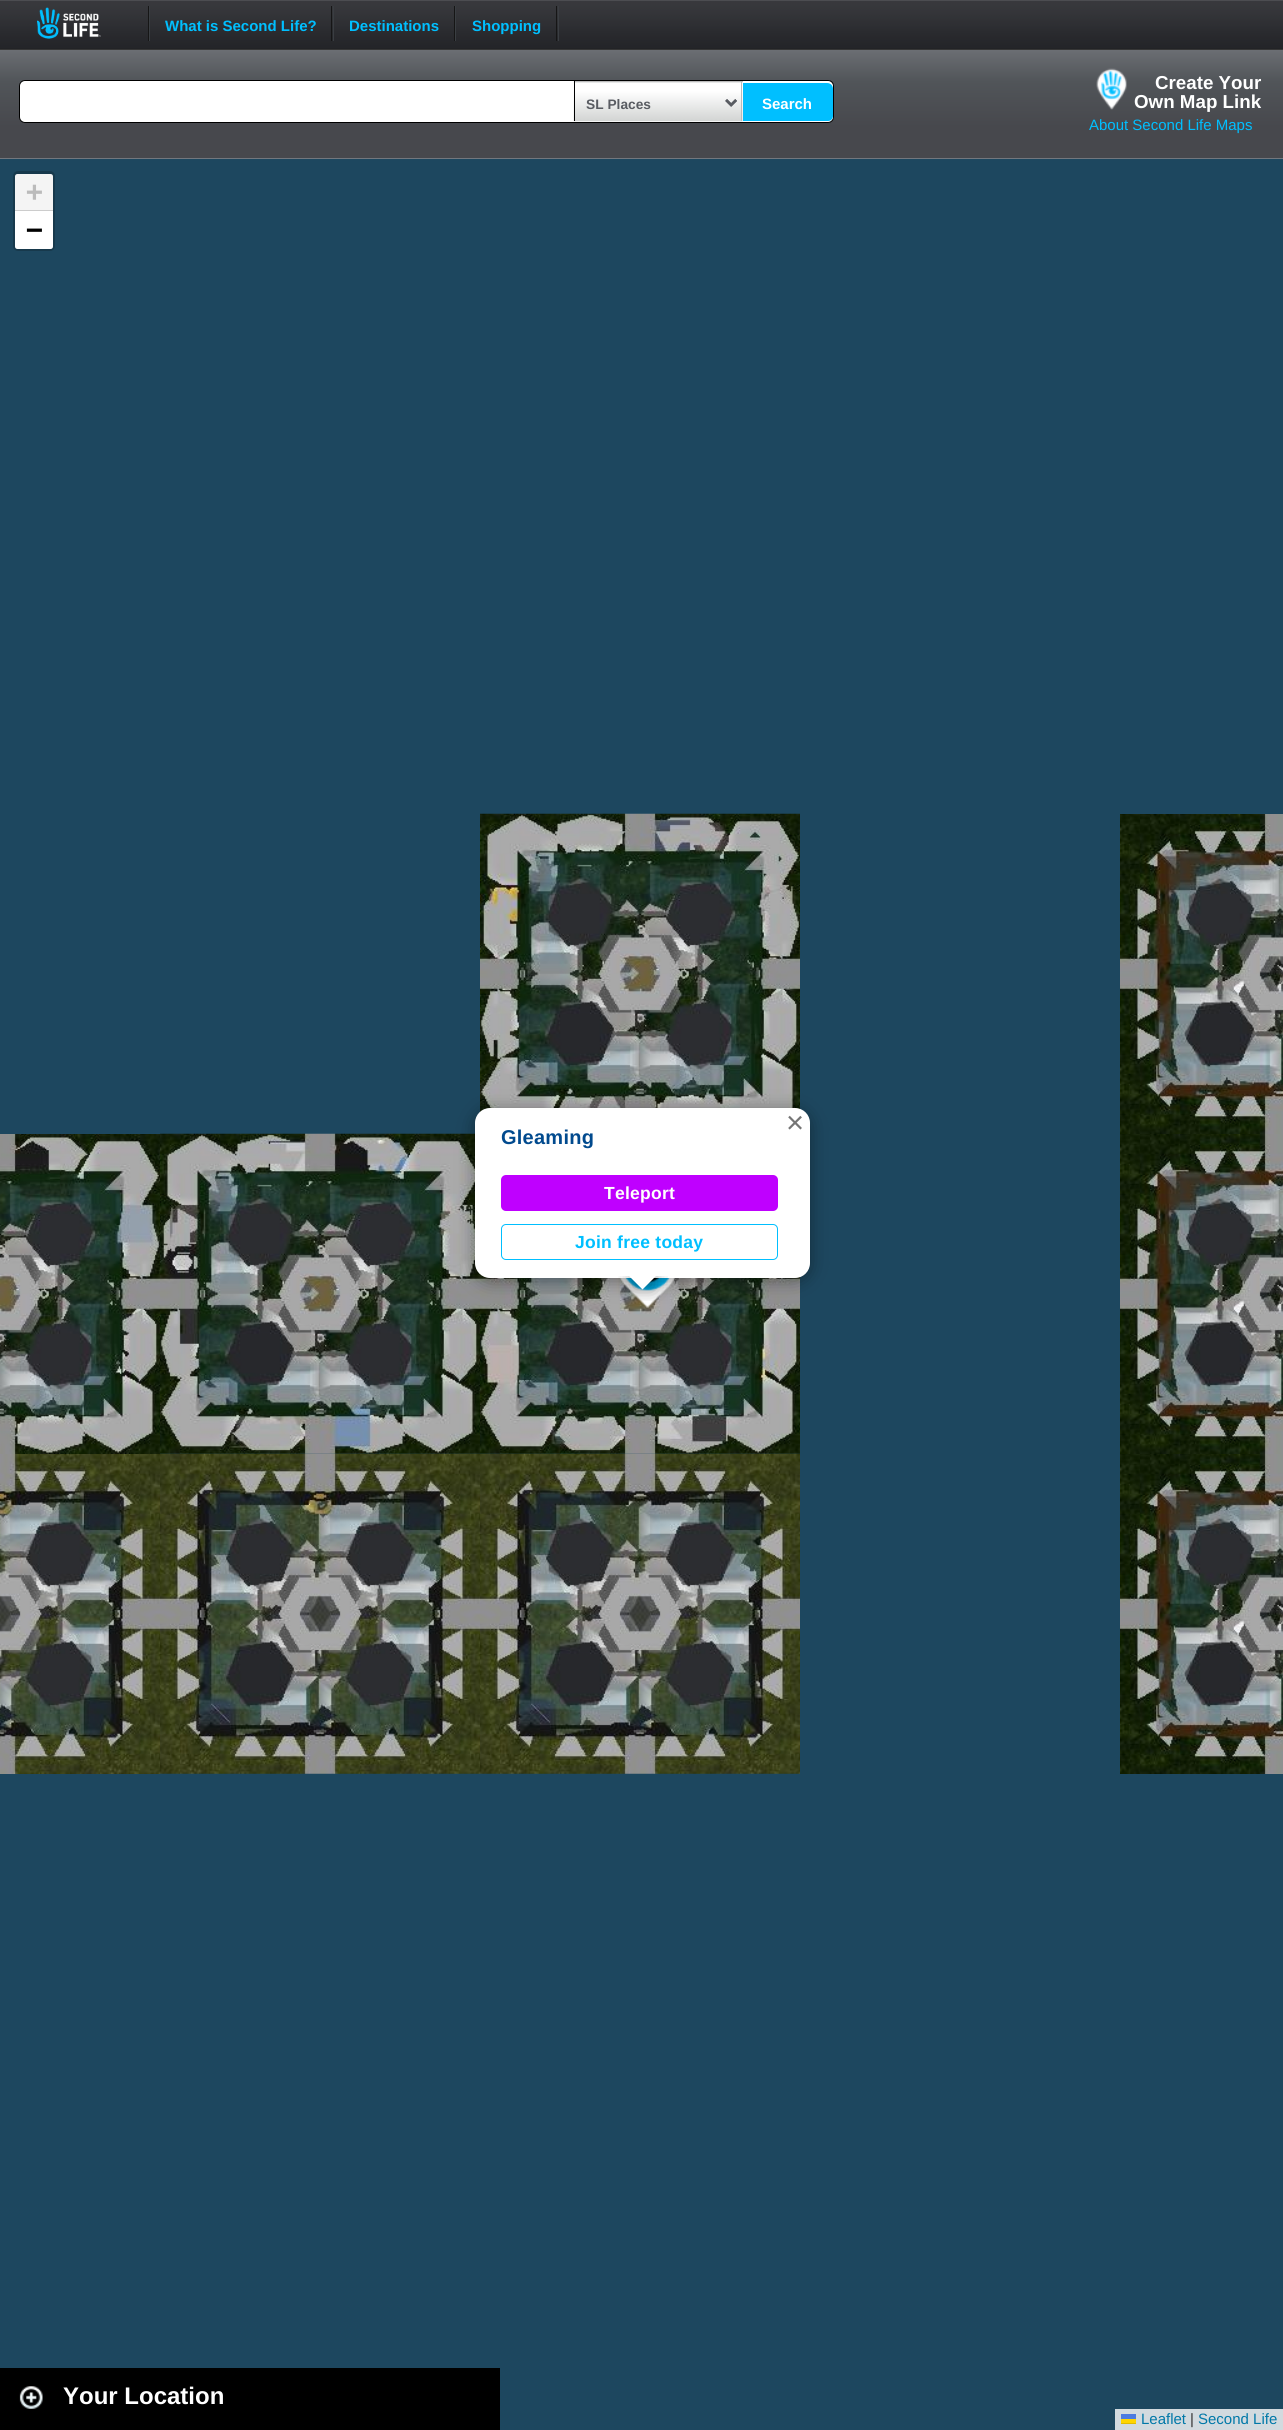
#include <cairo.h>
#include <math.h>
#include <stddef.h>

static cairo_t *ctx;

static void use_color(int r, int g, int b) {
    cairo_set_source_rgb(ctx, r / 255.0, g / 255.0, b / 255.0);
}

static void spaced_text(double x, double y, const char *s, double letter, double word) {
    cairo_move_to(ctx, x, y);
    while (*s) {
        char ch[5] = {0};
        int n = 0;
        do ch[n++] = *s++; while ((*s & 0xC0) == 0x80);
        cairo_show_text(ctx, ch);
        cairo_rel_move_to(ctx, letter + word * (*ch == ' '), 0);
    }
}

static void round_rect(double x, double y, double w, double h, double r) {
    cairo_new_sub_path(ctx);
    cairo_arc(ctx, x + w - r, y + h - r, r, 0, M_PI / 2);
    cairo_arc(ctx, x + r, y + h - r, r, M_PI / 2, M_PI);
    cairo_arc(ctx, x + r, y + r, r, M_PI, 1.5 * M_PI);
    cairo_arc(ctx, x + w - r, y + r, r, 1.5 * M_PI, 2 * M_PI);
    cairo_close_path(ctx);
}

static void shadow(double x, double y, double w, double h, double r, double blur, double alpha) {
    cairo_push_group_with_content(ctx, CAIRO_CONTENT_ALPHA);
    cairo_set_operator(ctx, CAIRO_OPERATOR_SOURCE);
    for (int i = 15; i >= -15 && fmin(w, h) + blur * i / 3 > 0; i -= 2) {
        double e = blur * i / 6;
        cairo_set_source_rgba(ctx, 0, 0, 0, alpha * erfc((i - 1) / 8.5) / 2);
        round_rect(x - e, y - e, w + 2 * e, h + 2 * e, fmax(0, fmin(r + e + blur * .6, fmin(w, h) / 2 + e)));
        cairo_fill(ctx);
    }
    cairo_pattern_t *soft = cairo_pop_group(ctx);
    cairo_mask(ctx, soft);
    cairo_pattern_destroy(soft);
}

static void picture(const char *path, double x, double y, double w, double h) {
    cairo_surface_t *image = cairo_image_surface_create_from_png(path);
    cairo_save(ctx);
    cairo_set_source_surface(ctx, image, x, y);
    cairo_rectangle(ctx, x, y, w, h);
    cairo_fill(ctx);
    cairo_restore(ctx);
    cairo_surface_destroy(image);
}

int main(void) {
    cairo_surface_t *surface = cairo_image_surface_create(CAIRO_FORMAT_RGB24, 1283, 2430);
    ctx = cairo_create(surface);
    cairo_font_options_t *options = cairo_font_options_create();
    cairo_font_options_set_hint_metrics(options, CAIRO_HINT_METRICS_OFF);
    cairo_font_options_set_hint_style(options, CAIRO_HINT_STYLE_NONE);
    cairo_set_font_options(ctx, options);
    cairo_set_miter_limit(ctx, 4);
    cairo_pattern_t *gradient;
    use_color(255, 255, 255);
    cairo_paint(ctx);
    picture("img1.png", 0, 0, 1283, 50);
    picture("img2.png", 37, 7, 64, 32);
    use_color(58, 62, 66);
    cairo_rectangle(ctx, 149, 6, 1, 35);
    cairo_fill(ctx);
    use_color(22, 22, 22);
    cairo_rectangle(ctx, 148, 6, 1, 35);
    cairo_fill(ctx);
    cairo_select_font_face(ctx, "Liberation Sans", CAIRO_FONT_SLANT_NORMAL, CAIRO_FONT_WEIGHT_BOLD);
    cairo_set_font_size(ctx, 15);
    use_color(0, 191, 255);
    cairo_move_to(ctx, 165, 31);
    cairo_show_text(ctx, "What is Second Life?");
    use_color(58, 62, 66);
    cairo_rectangle(ctx, 333, 6, 1, 35);
    cairo_fill(ctx);
    use_color(22, 22, 22);
    cairo_rectangle(ctx, 331, 6, 1, 35);
    cairo_fill(ctx);
    use_color(0, 191, 255);
    cairo_move_to(ctx, 349, 31);
    cairo_show_text(ctx, "Destinations");
    use_color(58, 62, 66);
    cairo_rectangle(ctx, 455, 6, 1, 35);
    cairo_fill(ctx);
    use_color(22, 22, 22);
    cairo_rectangle(ctx, 454, 6, 1, 35);
    cairo_fill(ctx);
    use_color(0, 191, 255);
    cairo_move_to(ctx, 472, 31);
    cairo_show_text(ctx, "Shopping");
    use_color(58, 62, 66);
    cairo_rectangle(ctx, 558, 6, 1, 35);
    cairo_fill(ctx);
    use_color(22, 22, 22);
    cairo_rectangle(ctx, 556, 6, 1, 35);
    cairo_fill(ctx);
    gradient = cairo_pattern_create_linear(0, 158, 0, 50);
    cairo_pattern_add_color_stop_rgba(gradient, 0.29, 0.278, 0.282, 0.302, 1);
    cairo_pattern_add_color_stop_rgba(gradient, 0.71, 0.318, 0.333, 0.349, 1);
    cairo_pattern_add_color_stop_rgba(gradient, 1, 0.42, 0.431, 0.451, 1);
    cairo_set_source(ctx, gradient);
    cairo_pattern_destroy(gradient);
    cairo_rectangle(ctx, 0, 50, 1283, 108);
    cairo_fill(ctx);
    use_color(114, 119, 126);
    cairo_rectangle(ctx, 0, 158, 1283, 1);
    cairo_fill(ctx);
    use_color(255, 255, 255);
    round_rect(19.5, 80.5, 814, 42, 5.5);
    cairo_fill_preserve(ctx);
    use_color(0, 0, 0);
    cairo_set_line_width(ctx, 1);
    cairo_stroke(ctx);
    picture("img3.png", 573, 81, 170, 41);
    use_color(187, 187, 187);
    cairo_rectangle(ctx, 574, 81, 169, 1);
    cairo_fill(ctx);
    cairo_rectangle(ctx, 741, 81, 1, 40);
    cairo_fill(ctx);
    use_color(0, 0, 0);
    cairo_rectangle(ctx, 574, 81, 1, 40);
    cairo_fill(ctx);
    cairo_new_path(ctx);
    cairo_move_to(ctx, 726, 100);
    cairo_line_to(ctx, 731, 105);
    cairo_line_to(ctx, 736, 100);
    use_color(89, 92, 98);
    cairo_set_line_width(ctx, 2.5);
    cairo_stroke(ctx);
    cairo_set_font_size(ctx, 13.75);
    cairo_move_to(ctx, 586, 109);
    cairo_show_text(ctx, "SL Places");
    cairo_save(ctx);
    round_rect(20, 81, 813, 40, 5);
    cairo_clip(ctx);
    use_color(0, 191, 255);
    cairo_new_path(ctx);
    cairo_move_to(ctx, 743, 83);
    cairo_line_to(ctx, 827, 83);
    cairo_curve_to(ctx, 830.5, 83, 833, 85.5, 833, 89);
    cairo_line_to(ctx, 833, 119);
    cairo_curve_to(ctx, 833, 122.5, 830.5, 125, 827, 125);
    cairo_line_to(ctx, 743, 125);
    cairo_close_path(ctx);
    cairo_fill(ctx);
    cairo_restore(ctx);
    cairo_set_font_size(ctx, 15);
    use_color(255, 255, 255);
    cairo_move_to(ctx, 762, 109);
    cairo_show_text(ctx, "Search");
    picture("img4.png", 1096, 68, 31, 42);
    cairo_set_font_size(ctx, 18.75);
    cairo_move_to(ctx, 1155, 89);
    cairo_show_text(ctx, "Create Your");
    cairo_move_to(ctx, 1134, 108);
    cairo_show_text(ctx, "Own Map Link");
    cairo_select_font_face(ctx, "Liberation Sans", CAIRO_FONT_SLANT_NORMAL, CAIRO_FONT_WEIGHT_NORMAL);
    cairo_set_font_size(ctx, 15);
    use_color(0, 191, 255);
    cairo_move_to(ctx, 1089, 130);
    cairo_show_text(ctx, "About Second Life Maps");
    use_color(29, 71, 95);
    cairo_rectangle(ctx, 0, 159, 1283, 2271);
    cairo_fill(ctx);
    round_rect(14.5, 172.5, 39, 77, 3.5);
    use_color(23, 57, 76);
    cairo_set_line_width(ctx, 3);
    cairo_stroke(ctx);
    use_color(244, 244, 244);
    cairo_new_path(ctx);
    cairo_move_to(ctx, 17.5, 174);
    cairo_line_to(ctx, 50.5, 174);
    cairo_curve_to(ctx, 52, 174, 53, 175, 53, 176.5);
    cairo_line_to(ctx, 53, 211);
    cairo_line_to(ctx, 15, 211);
    cairo_line_to(ctx, 15, 176.5);
    cairo_curve_to(ctx, 15, 175, 16, 174, 17.5, 174);
    cairo_close_path(ctx);
    cairo_fill(ctx);
    use_color(204, 204, 204);
    cairo_rectangle(ctx, 15, 210, 38, 1);
    cairo_fill(ctx);
    cairo_select_font_face(ctx, "DejaVu Sans Mono", CAIRO_FONT_SLANT_NORMAL, CAIRO_FONT_WEIGHT_BOLD);
    cairo_set_font_size(ctx, 28);
    use_color(187, 187, 187);
    cairo_move_to(ctx, 26, 201);
    cairo_show_text(ctx, "+");
    use_color(255, 255, 255);
    cairo_new_path(ctx);
    cairo_move_to(ctx, 15, 211);
    cairo_line_to(ctx, 53, 211);
    cairo_line_to(ctx, 53, 246.5);
    cairo_curve_to(ctx, 53, 248, 52, 249, 50.5, 249);
    cairo_line_to(ctx, 17.5, 249);
    cairo_curve_to(ctx, 16, 249, 15, 248, 15, 246.5);
    cairo_close_path(ctx);
    cairo_fill(ctx);
    use_color(0, 0, 0);
    cairo_move_to(ctx, 26, 239);
    cairo_show_text(ctx, "−");
    use_color(210, 218, 223);
    cairo_rectangle(ctx, 1115, 2409, 168, 21);
    cairo_fill(ctx);
    cairo_select_font_face(ctx, "Liberation Sans", CAIRO_FONT_SLANT_NORMAL, CAIRO_FONT_WEIGHT_NORMAL);
    cairo_set_font_size(ctx, 15);
    use_color(0, 120, 168);
    cairo_move_to(ctx, 1141, 2424);
    cairo_show_text(ctx, "Leaflet");
    use_color(76, 123, 225);
    cairo_rectangle(ctx, 1121, 2414, 15, 5);
    cairo_fill(ctx);
    use_color(255, 213, 0);
    cairo_rectangle(ctx, 1121, 2419, 15, 4);
    cairo_fill(ctx);
    use_color(224, 188, 0);
    cairo_rectangle(ctx, 1121, 2423, 15, 1);
    cairo_fill(ctx);
    use_color(51, 51, 51);
    cairo_move_to(ctx, 1190, 2424);
    cairo_show_text(ctx, "|");
    use_color(0, 120, 168);
    cairo_move_to(ctx, 1198, 2424);
    cairo_show_text(ctx, "Second Life");
    picture("img5.png", 480, 813, 320, 299);
    picture("img6.png", 1120, 814, 163, 320);
    picture("img7.png", 0, 1134, 160, 320);
    picture("img8.png", 160, 1133, 320, 321);
    picture("img9.png", 480, 1274, 320, 180);
    picture("img6.png", 1120, 1134, 163, 320);
    picture("img10.png", 0, 1454, 160, 320);
    picture("img11.png", 160, 1453, 320, 321);
    picture("img12.png", 480, 1453, 320, 321);
    picture("img6.png", 1120, 1454, 163, 320);
    picture("img13.png", 620, 1278, 56, 30);
    use_color(0, 0, 0);
    shadow(475, 1111, 335, 170, 15, 9, 0.4);
    use_color(255, 255, 255);
    round_rect(475, 1108, 335, 170, 15);
    cairo_fill(ctx);
    cairo_set_font_size(ctx, 31);
    use_color(117, 117, 117);
    cairo_move_to(ctx, 786, 1133);
    cairo_show_text(ctx, "×");
    cairo_select_font_face(ctx, "Liberation Sans", CAIRO_FONT_SLANT_NORMAL, CAIRO_FONT_WEIGHT_BOLD);
    cairo_set_font_size(ctx, 20);
    use_color(1, 74, 142);
    spaced_text(501, 1144, "Gleaming", 0.25, 0);
    use_color(191, 0, 255);
    round_rect(501, 1175, 277, 36, 5);
    cairo_fill(ctx);
    cairo_set_font_size(ctx, 17.5);
    use_color(255, 255, 255);
    spaced_text(604, 1199, "Teleport", 0.25, 0);
    round_rect(501.5, 1224.5, 276, 35, 4.5);
    use_color(0, 191, 255);
    cairo_set_line_width(ctx, 1);
    cairo_stroke(ctx);
    spaced_text(575, 1248, "Join free today", 0.25, 0);
    cairo_save(ctx);
    cairo_rectangle(ctx, 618, 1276, 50, 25);
    cairo_clip(ctx);
    use_color(0, 0, 0);
    shadow(633, 1268, 21, 21, 0, 9, 0.4);
    cairo_restore(ctx);
    cairo_save(ctx);
    cairo_rectangle(ctx, 618, 1276, 50, 25);
    cairo_clip(ctx);
    use_color(255, 255, 255);
    cairo_new_path(ctx);
    cairo_move_to(ctx, 642.5, 1259.5);
    cairo_line_to(ctx, 657.5, 1274.5);
    cairo_line_to(ctx, 642.5, 1289.5);
    cairo_line_to(ctx, 627.5, 1274.5);
    cairo_close_path(ctx);
    cairo_fill(ctx);
    cairo_restore(ctx);
    use_color(0, 0, 0);
    cairo_rectangle(ctx, 0, 2368, 500, 62);
    cairo_fill(ctx);
    picture("img14.png", 19, 2386, 24, 23);
    cairo_set_font_size(ctx, 24);
    use_color(255, 255, 255);
    cairo_move_to(ctx, 63, 2404);
    cairo_show_text(ctx, "Your Location");
    cairo_surface_write_to_png(surface, "result.png");
    cairo_font_options_destroy(options);
    cairo_destroy(ctx);
    cairo_surface_destroy(surface);
    return 0;
}
